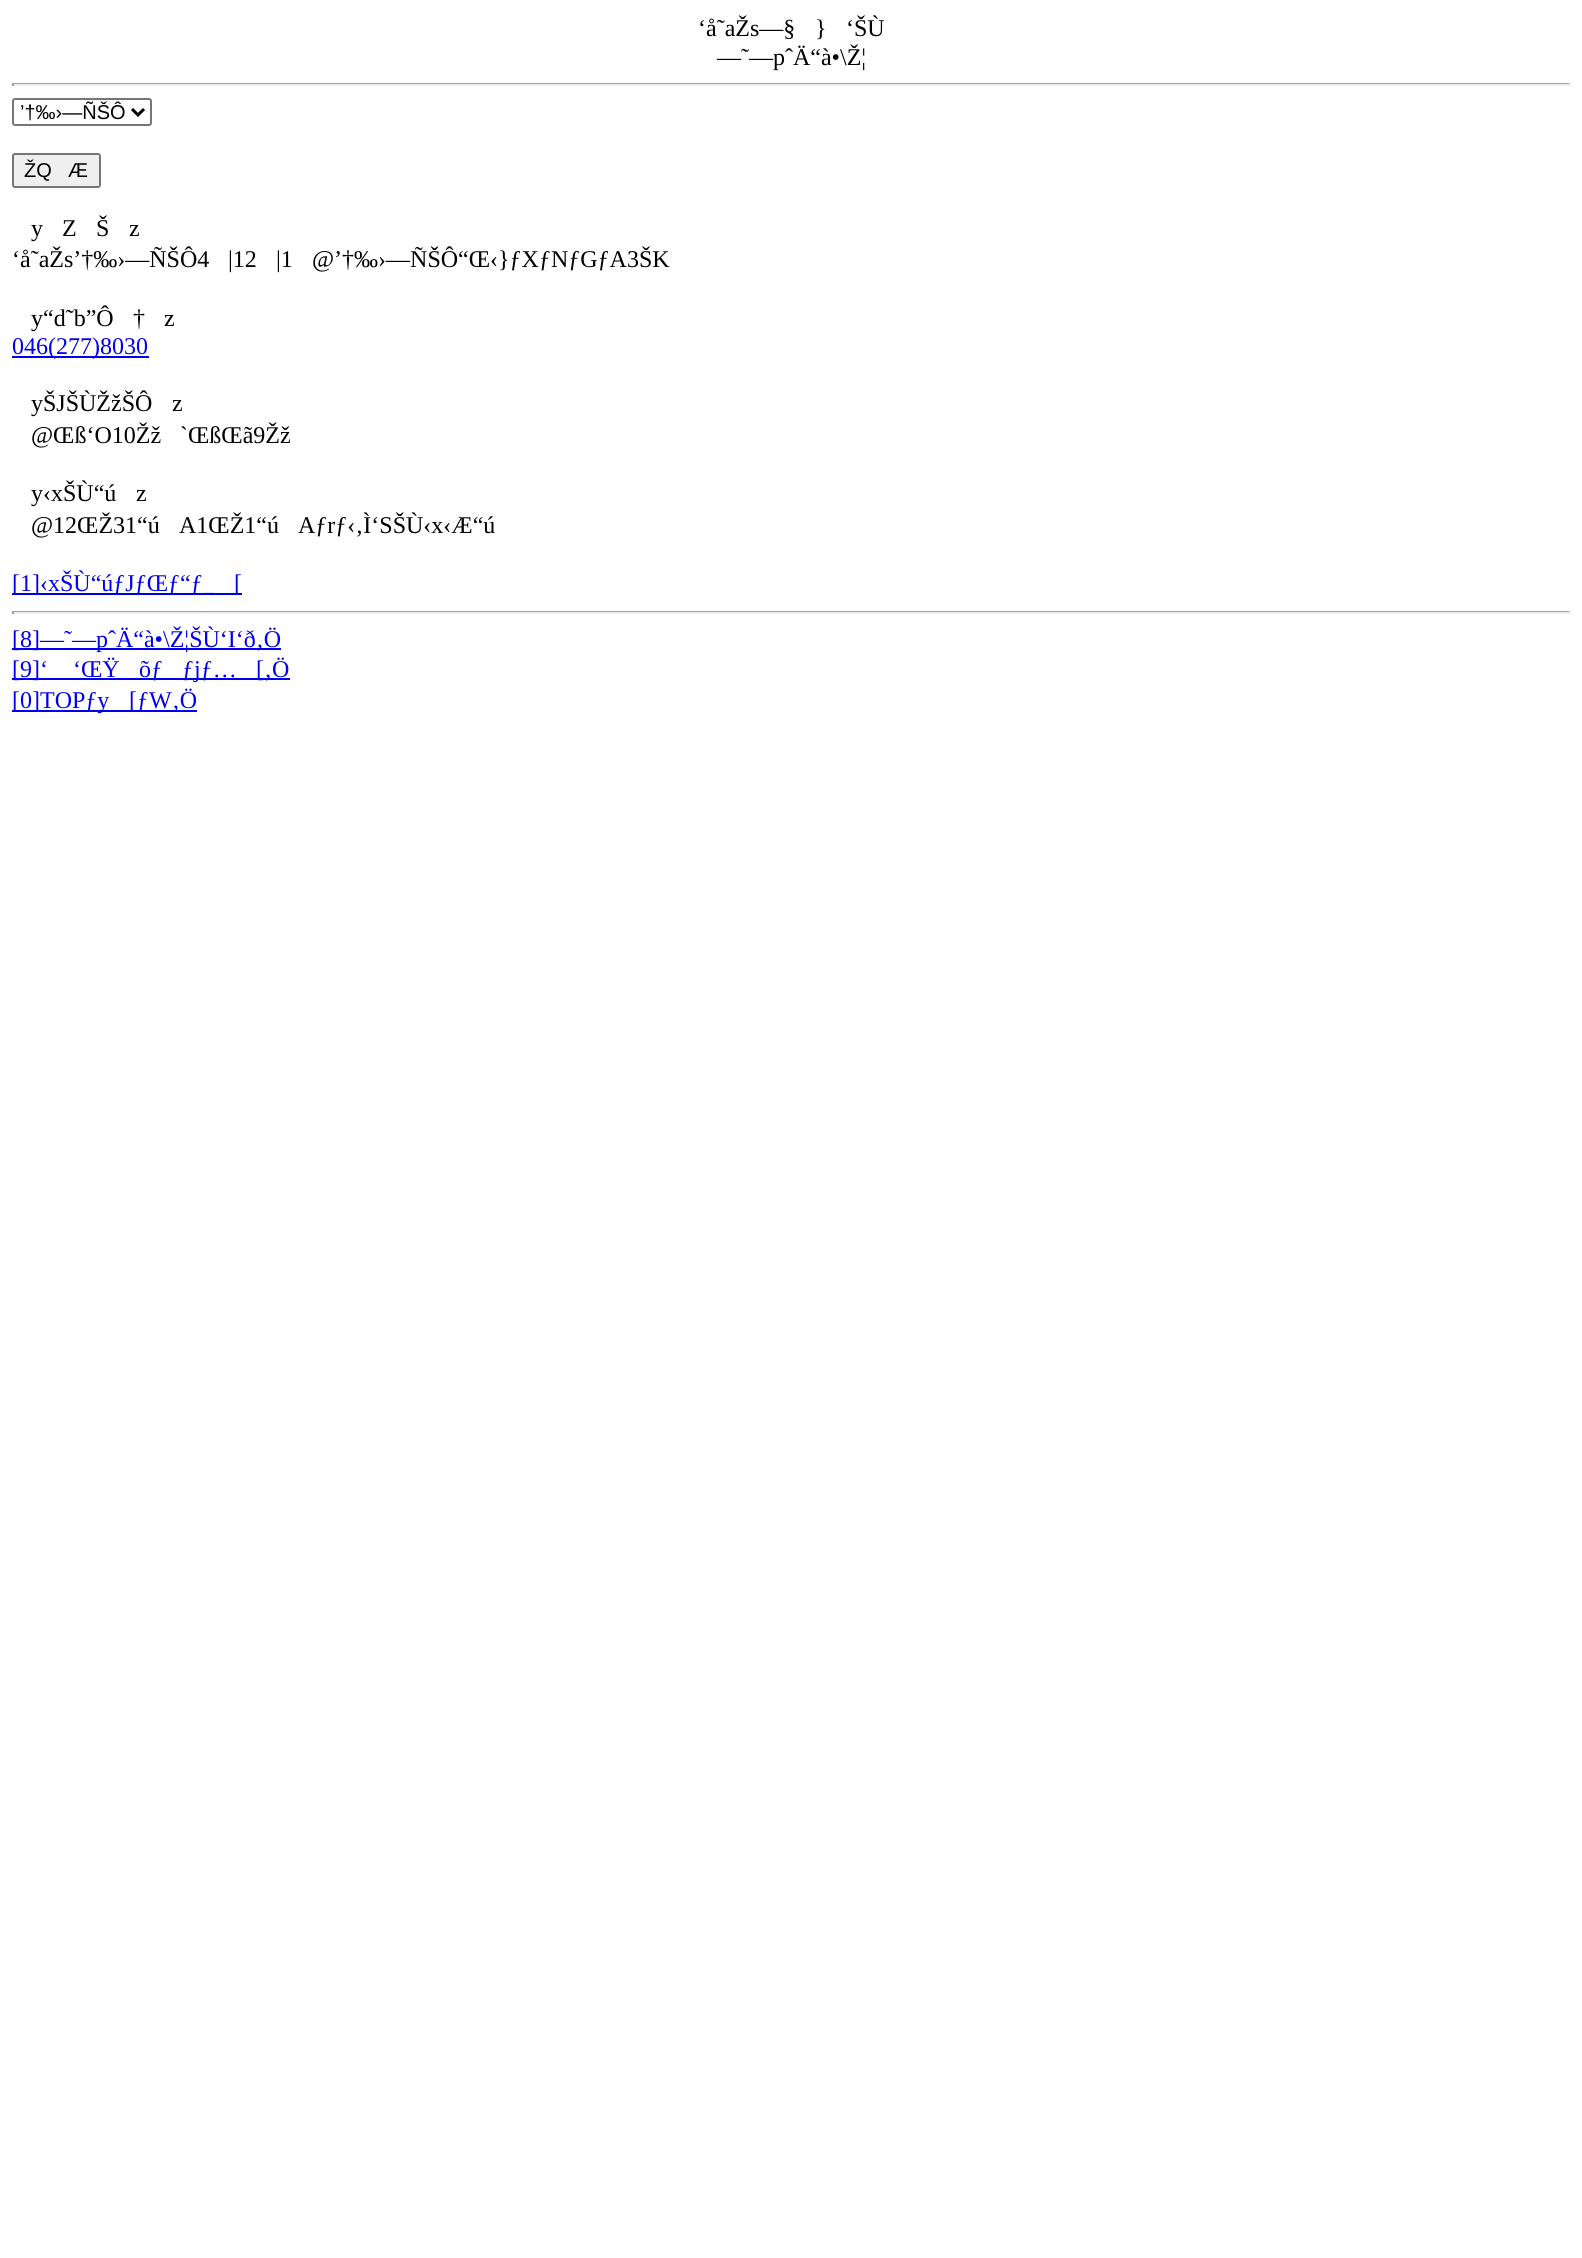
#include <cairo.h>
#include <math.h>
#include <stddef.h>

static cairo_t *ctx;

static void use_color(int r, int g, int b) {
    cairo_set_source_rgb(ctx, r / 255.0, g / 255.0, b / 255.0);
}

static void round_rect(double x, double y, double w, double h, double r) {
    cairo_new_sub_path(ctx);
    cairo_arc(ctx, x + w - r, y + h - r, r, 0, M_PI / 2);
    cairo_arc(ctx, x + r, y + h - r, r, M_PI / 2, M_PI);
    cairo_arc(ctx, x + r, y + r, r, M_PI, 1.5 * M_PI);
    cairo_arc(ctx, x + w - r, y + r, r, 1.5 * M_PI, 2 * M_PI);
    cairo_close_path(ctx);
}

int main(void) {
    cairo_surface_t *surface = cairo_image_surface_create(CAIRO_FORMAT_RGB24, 1582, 2258);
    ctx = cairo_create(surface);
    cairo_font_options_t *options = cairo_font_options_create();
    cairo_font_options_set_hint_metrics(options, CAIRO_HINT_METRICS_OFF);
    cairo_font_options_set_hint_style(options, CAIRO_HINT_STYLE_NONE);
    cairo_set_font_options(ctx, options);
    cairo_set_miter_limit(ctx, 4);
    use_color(255, 255, 255);
    cairo_paint(ctx);
    cairo_select_font_face(ctx, "Liberation Serif", CAIRO_FONT_SLANT_NORMAL, CAIRO_FONT_WEIGHT_NORMAL);
    cairo_set_font_size(ctx, 24);
    use_color(0, 0, 0);
    cairo_move_to(ctx, 698, 36);
    cairo_show_text(ctx, "‘å˜aŽs—§");
    cairo_move_to(ctx, 815, 36);
    cairo_show_text(ctx, "}");
    cairo_move_to(ctx, 846, 36);
    cairo_show_text(ctx, "‘ŠÙ");
    cairo_move_to(ctx, 717, 65);
    cairo_show_text(ctx, "—˜—pˆÄ“à•\\Ž¦");
    use_color(159, 159, 159);
    cairo_rectangle(ctx, 12, 83, 1559, 1);
    cairo_fill(ctx);
    use_color(238, 238, 238);
    cairo_rectangle(ctx, 1569, 83, 2, 3);
    cairo_fill(ctx);
    cairo_rectangle(ctx, 12, 84, 1559, 2);
    cairo_fill(ctx);
    use_color(159, 159, 159);
    cairo_rectangle(ctx, 12, 83, 2, 3);
    cairo_fill(ctx);
    round_rect(13, 99, 138, 26, 2);
    use_color(118, 118, 118);
    cairo_stroke(ctx);
    cairo_new_path(ctx);
    cairo_move_to(ctx, 132, 109);
    cairo_line_to(ctx, 138, 115);
    cairo_line_to(ctx, 144, 109);
    use_color(0, 0, 0);
    cairo_set_line_width(ctx, 3);
    cairo_stroke(ctx);
    cairo_select_font_face(ctx, "Liberation Sans", CAIRO_FONT_SLANT_NORMAL, CAIRO_FONT_WEIGHT_NORMAL);
    cairo_set_font_size(ctx, 20);
    cairo_move_to(ctx, 20, 119);
    cairo_show_text(ctx, "’†‰›—ÑŠÔ");
    use_color(239, 239, 239);
    round_rect(13, 154, 87, 33, 2);
    cairo_fill_preserve(ctx);
    use_color(118, 118, 118);
    cairo_set_line_width(ctx, 2);
    cairo_stroke(ctx);
    use_color(0, 0, 0);
    cairo_move_to(ctx, 24, 177);
    cairo_show_text(ctx, "ŽQ");
    cairo_move_to(ctx, 68, 177);
    cairo_show_text(ctx, "Æ");
    cairo_select_font_face(ctx, "Liberation Serif", CAIRO_FONT_SLANT_NORMAL, CAIRO_FONT_WEIGHT_NORMAL);
    cairo_set_font_size(ctx, 24);
    cairo_move_to(ctx, 31, 236);
    cairo_show_text(ctx, "y");
    cairo_move_to(ctx, 62, 236);
    cairo_show_text(ctx, "Z");
    cairo_move_to(ctx, 96, 236);
    cairo_show_text(ctx, "Š");
    cairo_move_to(ctx, 129, 236);
    cairo_show_text(ctx, "z");
    cairo_move_to(ctx, 12, 267);
    cairo_show_text(ctx, "‘å˜aŽs’†‰›—ÑŠÔ4");
    cairo_move_to(ctx, 228, 267);
    cairo_show_text(ctx, "|12");
    cairo_move_to(ctx, 276, 267);
    cairo_show_text(ctx, "|1");
    cairo_move_to(ctx, 312, 267);
    cairo_show_text(ctx, "@’†‰›—ÑŠÔ“Œ‹}ƒXƒNƒGƒA3ŠK");
    cairo_move_to(ctx, 31, 326);
    cairo_show_text(ctx, "y“d˜b”Ô");
    cairo_move_to(ctx, 133, 326);
    cairo_show_text(ctx, "†");
    cairo_move_to(ctx, 164, 326);
    cairo_show_text(ctx, "z");
    use_color(0, 0, 238);
    cairo_rectangle(ctx, 12, 356, 137, 2);
    cairo_fill(ctx);
    cairo_move_to(ctx, 12, 354);
    cairo_show_text(ctx, "046(277)8030");
    use_color(0, 0, 0);
    cairo_move_to(ctx, 31, 411);
    cairo_show_text(ctx, "yŠJŠÙŽžŠÔ");
    cairo_move_to(ctx, 172, 411);
    cairo_show_text(ctx, "z");
    cairo_move_to(ctx, 31, 443);
    cairo_show_text(ctx, "@Œß‘O10Žž");
    cairo_move_to(ctx, 180, 443);
    cairo_show_text(ctx, "`ŒßŒã9Žž");
    cairo_move_to(ctx, 31, 501);
    cairo_show_text(ctx, "y‹xŠÙ“ú");
    cairo_move_to(ctx, 136, 501);
    cairo_show_text(ctx, "z");
    cairo_move_to(ctx, 31, 533);
    cairo_show_text(ctx, "@12ŒŽ31“ú");
    cairo_move_to(ctx, 179, 533);
    cairo_show_text(ctx, "A1ŒŽ1“ú");
    cairo_move_to(ctx, 298, 533);
    cairo_show_text(ctx, "Aƒrƒ‹‚Ì‘SŠÙ‹x‹Æ“ú");
    use_color(0, 0, 238);
    cairo_rectangle(ctx, 12, 593, 230, 2);
    cairo_fill(ctx);
    cairo_move_to(ctx, 12, 591);
    cairo_show_text(ctx, "[1]‹xŠÙ“úƒJƒŒƒ“ƒ_");
    cairo_move_to(ctx, 234, 591);
    cairo_show_text(ctx, "[");
    use_color(159, 159, 159);
    cairo_rectangle(ctx, 12, 611, 1559, 1);
    cairo_fill(ctx);
    use_color(238, 238, 238);
    cairo_rectangle(ctx, 1569, 611, 2, 3);
    cairo_fill(ctx);
    cairo_rectangle(ctx, 12, 612, 1559, 2);
    cairo_fill(ctx);
    use_color(159, 159, 159);
    cairo_rectangle(ctx, 12, 611, 2, 3);
    cairo_fill(ctx);
    use_color(0, 0, 238);
    cairo_rectangle(ctx, 12, 648, 269, 2);
    cairo_fill(ctx);
    cairo_move_to(ctx, 12, 647);
    cairo_show_text(ctx, "[8]—˜—pˆÄ“à•\\Ž¦ŠÙ‘I‘ð‚Ö");
    cairo_rectangle(ctx, 12, 678, 278, 2);
    cairo_fill(ctx);
    cairo_move_to(ctx, 12, 677);
    cairo_show_text(ctx, "[9]‘");
    cairo_move_to(ctx, 73, 677);
    cairo_show_text(ctx, "‘ŒŸ");
    cairo_move_to(ctx, 139, 677);
    cairo_show_text(ctx, "õƒ");
    cairo_move_to(ctx, 182, 677);
    cairo_show_text(ctx, "ƒjƒ…");
    cairo_move_to(ctx, 256, 677);
    cairo_show_text(ctx, "[‚Ö");
    cairo_rectangle(ctx, 12, 710, 185, 2);
    cairo_fill(ctx);
    cairo_move_to(ctx, 12, 708);
    cairo_show_text(ctx, "[0]TOPƒy");
    cairo_move_to(ctx, 129, 708);
    cairo_show_text(ctx, "[ƒW‚Ö");
    cairo_surface_write_to_png(surface, "result.png");
    cairo_font_options_destroy(options);
    cairo_destroy(ctx);
    cairo_surface_destroy(surface);
    return 0;
}
